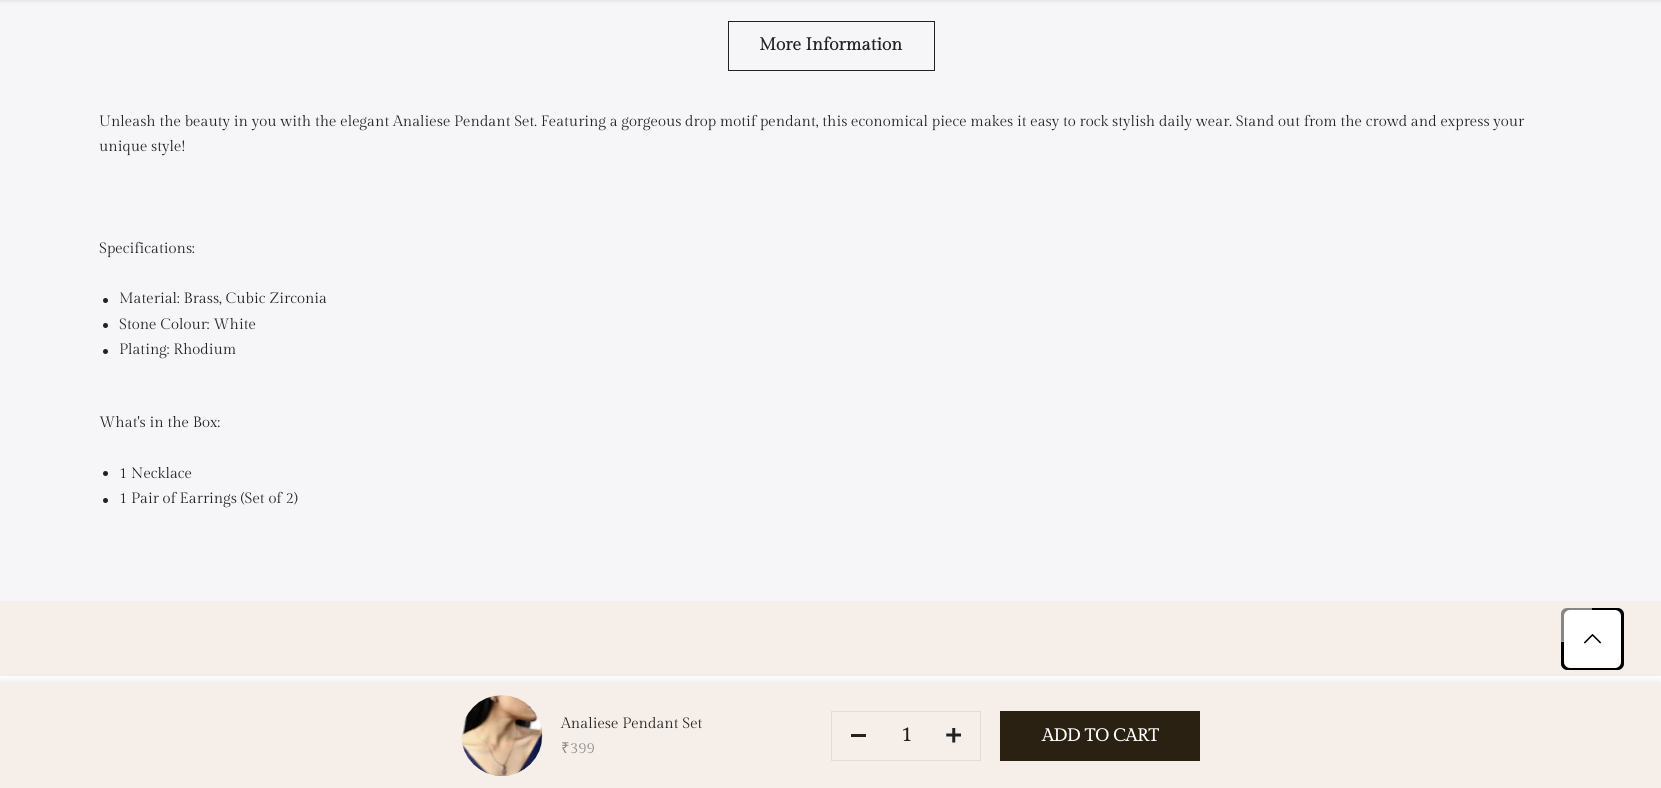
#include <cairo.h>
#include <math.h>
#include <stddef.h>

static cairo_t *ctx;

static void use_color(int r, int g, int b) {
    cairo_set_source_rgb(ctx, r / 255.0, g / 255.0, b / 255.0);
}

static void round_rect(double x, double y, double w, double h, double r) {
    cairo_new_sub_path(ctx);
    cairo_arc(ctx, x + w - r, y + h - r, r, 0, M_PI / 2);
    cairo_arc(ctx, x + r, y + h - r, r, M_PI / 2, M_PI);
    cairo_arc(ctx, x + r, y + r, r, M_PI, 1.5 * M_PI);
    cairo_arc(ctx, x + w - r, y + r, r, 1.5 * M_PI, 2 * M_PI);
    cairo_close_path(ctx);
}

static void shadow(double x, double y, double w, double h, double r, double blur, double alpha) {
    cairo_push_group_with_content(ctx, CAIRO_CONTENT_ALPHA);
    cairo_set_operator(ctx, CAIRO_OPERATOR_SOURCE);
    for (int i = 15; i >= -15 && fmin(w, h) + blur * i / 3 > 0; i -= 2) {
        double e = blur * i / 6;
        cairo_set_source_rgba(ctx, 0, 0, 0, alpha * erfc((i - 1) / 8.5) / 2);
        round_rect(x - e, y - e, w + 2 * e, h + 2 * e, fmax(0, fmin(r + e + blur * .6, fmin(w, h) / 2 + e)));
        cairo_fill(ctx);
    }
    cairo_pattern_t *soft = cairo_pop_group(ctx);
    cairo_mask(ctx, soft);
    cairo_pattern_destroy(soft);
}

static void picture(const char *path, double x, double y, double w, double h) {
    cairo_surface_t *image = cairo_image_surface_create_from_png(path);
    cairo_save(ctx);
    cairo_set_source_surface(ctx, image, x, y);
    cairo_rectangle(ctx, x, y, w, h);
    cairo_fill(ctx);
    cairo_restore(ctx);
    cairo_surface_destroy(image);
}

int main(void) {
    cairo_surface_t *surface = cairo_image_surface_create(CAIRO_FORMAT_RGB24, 1661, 788);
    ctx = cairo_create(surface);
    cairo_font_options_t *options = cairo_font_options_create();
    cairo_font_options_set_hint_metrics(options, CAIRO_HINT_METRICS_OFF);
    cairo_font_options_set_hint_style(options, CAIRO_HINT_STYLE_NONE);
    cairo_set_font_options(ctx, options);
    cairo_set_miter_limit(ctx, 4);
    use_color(245, 238, 233);
    cairo_paint(ctx);
    use_color(246, 246, 248);
    cairo_rectangle(ctx, 0, 0, 1661, 601);
    cairo_fill(ctx);
    use_color(0, 0, 0);
    shadow(0, -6, 1661, 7, 0, 2, 0.1);
    cairo_rectangle(ctx, 728.5, 21.5, 206, 49);
    use_color(34, 34, 34);
    cairo_set_line_width(ctx, 1);
    cairo_stroke(ctx);
    cairo_select_font_face(ctx, "Gilda Display", CAIRO_FONT_SLANT_NORMAL, CAIRO_FONT_WEIGHT_BOLD);
    cairo_set_font_size(ctx, 17.5);
    cairo_move_to(ctx, 759, 50);
    cairo_show_text(ctx, "More Information");
    cairo_select_font_face(ctx, "Gilda Display", CAIRO_FONT_SLANT_NORMAL, CAIRO_FONT_WEIGHT_NORMAL);
    cairo_set_font_size(ctx, 15);
    cairo_move_to(ctx, 99, 126);
    cairo_show_text(ctx, "Unleash the beauty in you with the elegant Analiese Pendant Set. Featuring a gorgeous drop motif pendant, this economical piece makes it easy to rock stylish daily wear. Stand out from the crowd and express your");
    cairo_move_to(ctx, 99, 151);
    cairo_show_text(ctx, "unique style!");
    cairo_move_to(ctx, 99, 253);
    cairo_show_text(ctx, "Specifications:");
    cairo_new_path(ctx);
    cairo_arc(ctx, 105.5, 300.5, 2.5, 0, 2 * M_PI);
    cairo_fill(ctx);
    cairo_move_to(ctx, 119, 303);
    cairo_show_text(ctx, "Material: Brass, Cubic Zirconia");
    cairo_new_path(ctx);
    cairo_arc(ctx, 105.5, 325.5, 2.5, 0, 2 * M_PI);
    cairo_fill(ctx);
    cairo_move_to(ctx, 119, 329);
    cairo_show_text(ctx, "Stone Colour: White");
    cairo_new_path(ctx);
    cairo_arc(ctx, 105.5, 351.5, 2.5, 0, 2 * M_PI);
    cairo_fill(ctx);
    cairo_move_to(ctx, 119, 354);
    cairo_show_text(ctx, "Plating: Rhodium");
    cairo_move_to(ctx, 99, 427);
    cairo_show_text(ctx, "What's in the Box:");
    cairo_new_path(ctx);
    cairo_arc(ctx, 105.5, 473.5, 2.5, 0, 2 * M_PI);
    cairo_fill(ctx);
    cairo_move_to(ctx, 119, 478);
    cairo_show_text(ctx, "1 Necklace");
    cairo_new_path(ctx);
    cairo_arc(ctx, 105.5, 500.5, 2.5, 0, 2 * M_PI);
    cairo_fill(ctx);
    cairo_move_to(ctx, 119, 503);
    cairo_show_text(ctx, "1 Pair of Earrings (Set of 2)");
    use_color(255, 255, 255);
    cairo_rectangle(ctx, 0, 676, 1661, 7);
    cairo_fill(ctx);
    use_color(0, 0, 0);
    shadow(0, 683, 1661, 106, 0, 5.5, 0.12);
    use_color(0, 0, 0);
    cairo_new_path(ctx);
    cairo_move_to(ctx, 1592, 639);
    cairo_line_to(ctx, 1561, 642);
    cairo_line_to(ctx, 1561, 664);
    cairo_curve_to(ctx, 1561, 667, 1564, 670, 1567, 670);
    cairo_line_to(ctx, 1618, 670);
    cairo_curve_to(ctx, 1621, 670, 1624, 667, 1624, 664);
    cairo_line_to(ctx, 1624, 614);
    cairo_curve_to(ctx, 1624, 611, 1621, 608, 1618, 608);
    cairo_line_to(ctx, 1592, 608);
    cairo_close_path(ctx);
    cairo_fill(ctx);
    use_color(135, 135, 135);
    cairo_new_path(ctx);
    cairo_move_to(ctx, 1592, 639);
    cairo_line_to(ctx, 1592, 608);
    cairo_line_to(ctx, 1567, 608);
    cairo_curve_to(ctx, 1563.5, 608, 1561, 610.5, 1561, 614);
    cairo_line_to(ctx, 1561, 642);
    cairo_close_path(ctx);
    cairo_fill(ctx);
    use_color(255, 255, 255);
    round_rect(1564, 610, 57, 58, 6);
    cairo_fill(ctx);
    picture("img1.png", 1584, 634, 17, 10);
    use_color(245, 238, 233);
    cairo_rectangle(ctx, 0, 683, 1661, 105);
    cairo_fill(ctx);
    picture("img2.png", 461, 695, 82, 81);
    use_color(34, 34, 34);
    cairo_move_to(ctx, 561, 728);
    cairo_show_text(ctx, "Analiese Pendant Set");
    cairo_select_font_face(ctx, "Noto Sans", CAIRO_FONT_SLANT_NORMAL, CAIRO_FONT_WEIGHT_NORMAL);
    use_color(135, 135, 135);
    cairo_move_to(ctx, 561, 753);
    cairo_show_text(ctx, "₹");
    cairo_select_font_face(ctx, "Gilda Display", CAIRO_FONT_SLANT_NORMAL, CAIRO_FONT_WEIGHT_NORMAL);
    cairo_move_to(ctx, 570, 753);
    cairo_show_text(ctx, "399");
    cairo_rectangle(ctx, 831.5, 711.5, 149, 49);
    use_color(221, 221, 221);
    cairo_stroke(ctx);
    use_color(34, 34, 34);
    cairo_rectangle(ctx, 851, 734, 15, 3);
    cairo_fill(ctx);
    cairo_select_font_face(ctx, "Gilda Display", CAIRO_FONT_SLANT_NORMAL, CAIRO_FONT_WEIGHT_BOLD);
    cairo_set_font_size(ctx, 20);
    cairo_move_to(ctx, 901, 741);
    cairo_show_text(ctx, "1");
    picture("img3.png", 946, 728, 15, 15);
    use_color(42, 33, 18);
    cairo_rectangle(ctx, 1000, 711, 200, 50);
    cairo_fill(ctx);
    cairo_set_font_size(ctx, 17.5);
    use_color(255, 255, 255);
    cairo_move_to(ctx, 1042, 741);
    cairo_show_text(ctx, "ADD TO CART");
    cairo_surface_write_to_png(surface, "result.png");
    cairo_font_options_destroy(options);
    cairo_destroy(ctx);
    cairo_surface_destroy(surface);
    return 0;
}
